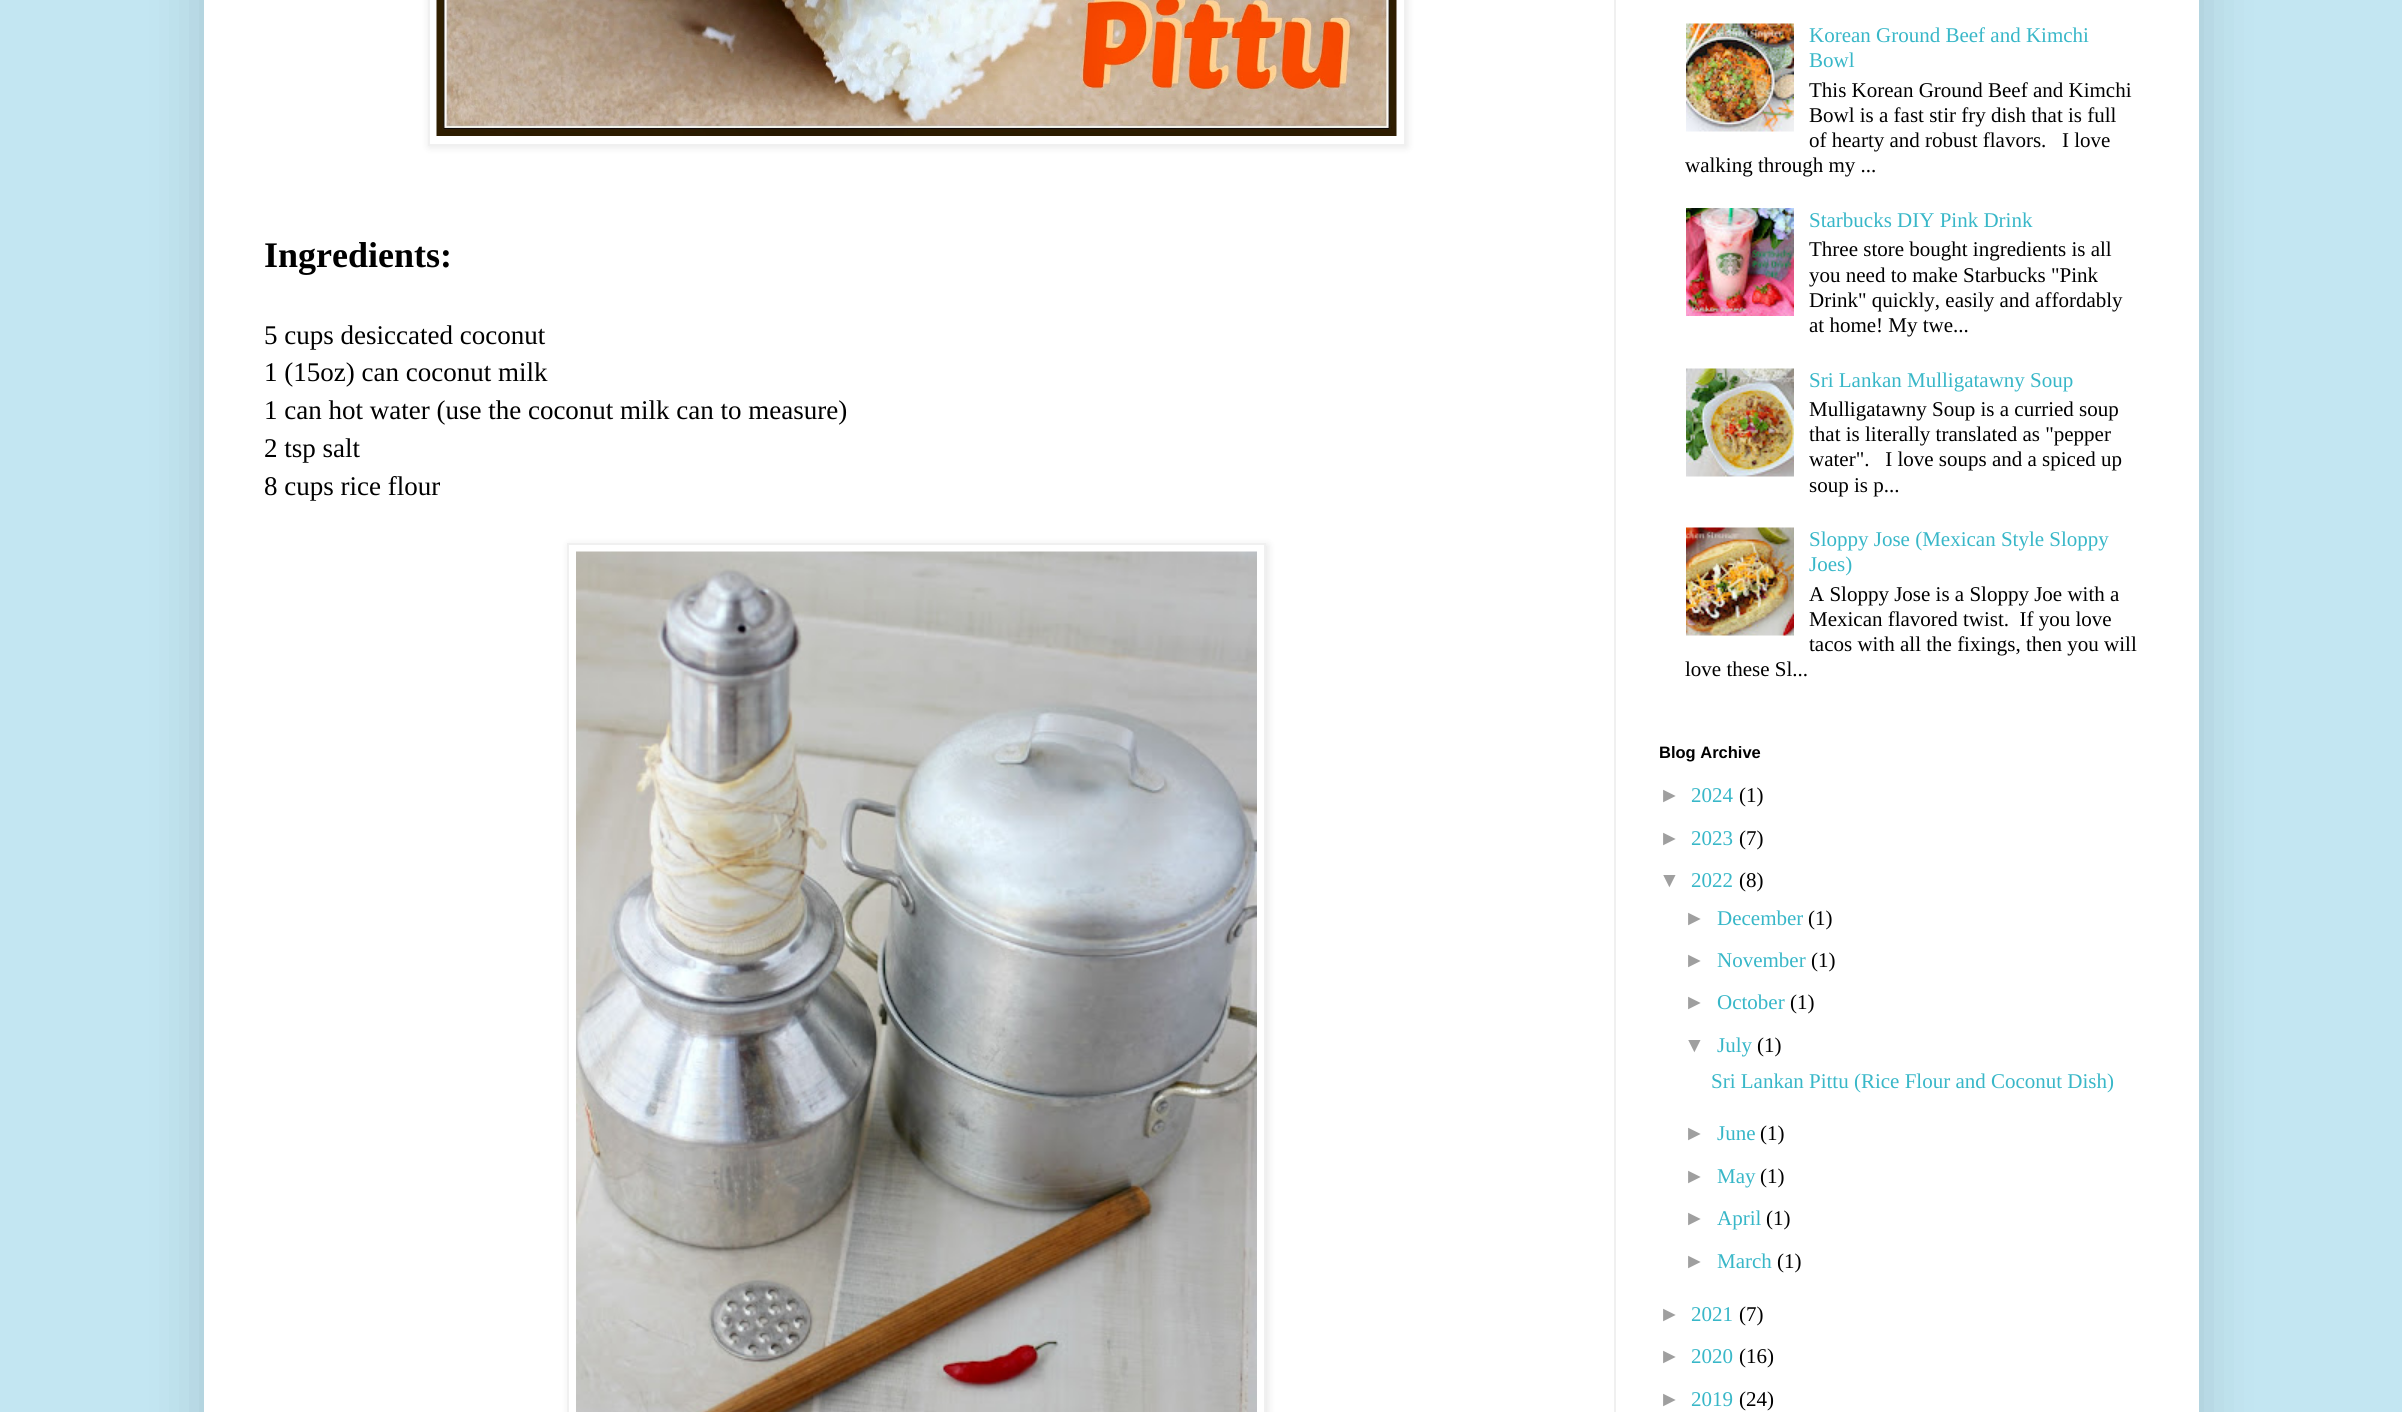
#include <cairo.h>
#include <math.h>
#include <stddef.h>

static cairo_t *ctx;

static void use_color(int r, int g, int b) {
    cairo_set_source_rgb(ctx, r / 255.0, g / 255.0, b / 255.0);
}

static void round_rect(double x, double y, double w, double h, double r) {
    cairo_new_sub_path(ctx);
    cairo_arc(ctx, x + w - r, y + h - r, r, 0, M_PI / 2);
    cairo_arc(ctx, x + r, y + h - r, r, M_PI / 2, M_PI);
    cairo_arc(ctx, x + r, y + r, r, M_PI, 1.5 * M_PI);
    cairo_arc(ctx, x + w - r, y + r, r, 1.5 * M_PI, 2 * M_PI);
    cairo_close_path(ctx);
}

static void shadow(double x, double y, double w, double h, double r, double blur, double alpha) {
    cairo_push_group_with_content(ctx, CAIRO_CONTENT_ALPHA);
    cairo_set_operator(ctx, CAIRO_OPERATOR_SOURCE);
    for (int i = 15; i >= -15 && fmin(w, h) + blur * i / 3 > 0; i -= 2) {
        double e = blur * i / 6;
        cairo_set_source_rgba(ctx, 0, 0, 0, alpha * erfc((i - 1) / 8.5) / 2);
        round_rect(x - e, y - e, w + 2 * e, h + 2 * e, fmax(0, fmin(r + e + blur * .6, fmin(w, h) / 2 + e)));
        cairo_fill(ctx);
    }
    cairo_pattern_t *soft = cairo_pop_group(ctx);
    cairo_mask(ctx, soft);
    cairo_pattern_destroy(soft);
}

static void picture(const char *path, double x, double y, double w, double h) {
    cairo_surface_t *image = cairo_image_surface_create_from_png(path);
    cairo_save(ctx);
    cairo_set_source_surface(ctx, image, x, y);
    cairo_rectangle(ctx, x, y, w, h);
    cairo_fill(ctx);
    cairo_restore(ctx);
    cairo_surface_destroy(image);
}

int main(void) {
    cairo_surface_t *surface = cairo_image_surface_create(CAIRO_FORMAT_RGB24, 2402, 1412);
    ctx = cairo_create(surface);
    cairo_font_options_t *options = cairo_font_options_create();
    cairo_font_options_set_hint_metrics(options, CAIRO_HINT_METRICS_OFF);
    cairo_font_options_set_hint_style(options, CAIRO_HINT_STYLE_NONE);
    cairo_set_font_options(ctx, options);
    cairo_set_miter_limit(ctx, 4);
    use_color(195, 230, 242);
    cairo_paint(ctx);
    use_color(0, 0, 0);
    shadow(204, -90, 1995, 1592, 0, 30, 0.15);
    use_color(255, 255, 255);
    cairo_rectangle(ctx, 204, 0, 1995, 1412);
    cairo_fill(ctx);
    use_color(240, 240, 240);
    cairo_rectangle(ctx, 1614, 0, 2, 1412);
    cairo_fill(ctx);
    use_color(0, 0, 0);
    shadow(429, -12, 978, 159, 0, 4, 0.1);
    use_color(255, 255, 255);
    cairo_rectangle(ctx, 429, -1, 976, 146);
    cairo_fill_preserve(ctx);
    use_color(240, 240, 240);
    cairo_stroke(ctx);
    picture("img1.png", 436, 0, 961, 136);
    cairo_select_font_face(ctx, "Liberation Serif", CAIRO_FONT_SLANT_NORMAL, CAIRO_FONT_WEIGHT_BOLD);
    cairo_set_font_size(ctx, 36);
    use_color(0, 0, 0);
    cairo_move_to(ctx, 264, 267);
    cairo_show_text(ctx, "Ingredients:");
    cairo_select_font_face(ctx, "Liberation Serif", CAIRO_FONT_SLANT_NORMAL, CAIRO_FONT_WEIGHT_NORMAL);
    cairo_set_font_size(ctx, 27);
    cairo_move_to(ctx, 264, 344);
    cairo_show_text(ctx, "5 cups desiccated coconut");
    cairo_move_to(ctx, 264, 381);
    cairo_show_text(ctx, "1 (15oz) can coconut milk");
    cairo_move_to(ctx, 264, 419);
    cairo_show_text(ctx, "1 can hot water (use the coconut milk can to measure)");
    cairo_move_to(ctx, 264, 457);
    cairo_show_text(ctx, "2 tsp salt");
    cairo_move_to(ctx, 264, 495);
    cairo_show_text(ctx, "8 cups rice flour");
    cairo_save(ctx);
    cairo_set_fill_rule(ctx, CAIRO_FILL_RULE_EVEN_ODD);
    cairo_new_path(ctx);
    cairo_move_to(ctx, 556, 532);
    cairo_line_to(ctx, 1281, 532);
    cairo_line_to(ctx, 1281, 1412);
    cairo_line_to(ctx, 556, 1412);
    cairo_close_path(ctx);
    cairo_move_to(ctx, 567, 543);
    cairo_line_to(ctx, 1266, 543);
    cairo_line_to(ctx, 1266, 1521);
    cairo_line_to(ctx, 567, 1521);
    cairo_close_path(ctx);
    cairo_clip(ctx);
    use_color(0, 0, 0);
    shadow(569, 545, 699, 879, 0, 4, 0.1);
    cairo_restore(ctx);
    cairo_rectangle(ctx, 568, 544, 697, 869);
    use_color(240, 240, 240);
    cairo_stroke(ctx);
    picture("img2.png", 576, 551, 681, 861);
    picture("img3.png", 1686, 23, 108, 109);
    cairo_set_font_size(ctx, 21);
    use_color(56, 183, 200);
    cairo_move_to(ctx, 1809, 42);
    cairo_show_text(ctx, "Korean Ground Beef and Kimchi");
    cairo_move_to(ctx, 1809, 67);
    cairo_show_text(ctx, "Bowl");
    use_color(0, 0, 0);
    cairo_move_to(ctx, 1809, 97);
    cairo_show_text(ctx, "This Korean Ground Beef and Kimchi");
    cairo_move_to(ctx, 1809, 122);
    cairo_show_text(ctx, "Bowl is a fast stir fry dish that is full");
    cairo_move_to(ctx, 1809, 147);
    cairo_show_text(ctx, "of hearty and robust flavors.");
    cairo_move_to(ctx, 2062, 147);
    cairo_show_text(ctx, "I love");
    cairo_move_to(ctx, 1685, 172);
    cairo_show_text(ctx, "walking through my ...");
    picture("img4.png", 1686, 208, 108, 108);
    use_color(56, 183, 200);
    cairo_move_to(ctx, 1809, 227);
    cairo_show_text(ctx, "Starbucks DIY Pink Drink");
    use_color(0, 0, 0);
    cairo_move_to(ctx, 1809, 256);
    cairo_show_text(ctx, "Three store bought ingredients is all");
    cairo_move_to(ctx, 1809, 282);
    cairo_show_text(ctx, "you need to make Starbucks \"Pink");
    cairo_move_to(ctx, 1809, 307);
    cairo_show_text(ctx, "Drink\" quickly, easily and affordably");
    cairo_move_to(ctx, 1809, 332);
    cairo_show_text(ctx, "at home! My twe...");
    picture("img5.png", 1686, 368, 108, 109);
    use_color(56, 183, 200);
    cairo_move_to(ctx, 1809, 387);
    cairo_show_text(ctx, "Sri Lankan Mulligatawny Soup");
    use_color(0, 0, 0);
    cairo_move_to(ctx, 1809, 416);
    cairo_show_text(ctx, "Mulligatawny Soup is a curried soup");
    cairo_move_to(ctx, 1809, 441);
    cairo_show_text(ctx, "that is literally translated as \"pepper");
    cairo_move_to(ctx, 1809, 466);
    cairo_show_text(ctx, "water\".   I love soups and a spiced up");
    cairo_move_to(ctx, 1809, 492);
    cairo_show_text(ctx, "soup is p...");
    picture("img6.png", 1686, 527, 108, 109);
    use_color(56, 183, 200);
    cairo_move_to(ctx, 1809, 546);
    cairo_show_text(ctx, "Sloppy Jose (Mexican Style Sloppy");
    cairo_move_to(ctx, 1809, 571);
    cairo_show_text(ctx, "Joes)");
    use_color(0, 0, 0);
    cairo_move_to(ctx, 1809, 601);
    cairo_show_text(ctx, "A Sloppy Jose is a Sloppy Joe with a");
    cairo_move_to(ctx, 1809, 626);
    cairo_show_text(ctx, "Mexican flavored twist.  If you love");
    cairo_move_to(ctx, 1809, 651);
    cairo_show_text(ctx, "tacos with all the fixings, then you will");
    cairo_move_to(ctx, 1685, 676);
    cairo_show_text(ctx, "love these Sl...");
    cairo_select_font_face(ctx, "Liberation Sans", CAIRO_FONT_SLANT_NORMAL, CAIRO_FONT_WEIGHT_BOLD);
    cairo_set_font_size(ctx, 16.5);
    cairo_move_to(ctx, 1659, 758);
    cairo_show_text(ctx, "Blog Archive");
    cairo_select_font_face(ctx, "Liberation Sans", CAIRO_FONT_SLANT_NORMAL, CAIRO_FONT_WEIGHT_NORMAL);
    cairo_set_font_size(ctx, 21);
    use_color(159, 159, 159);
    cairo_move_to(ctx, 1659, 802);
    cairo_show_text(ctx, "►");
    cairo_select_font_face(ctx, "Liberation Serif", CAIRO_FONT_SLANT_NORMAL, CAIRO_FONT_WEIGHT_NORMAL);
    use_color(56, 183, 200);
    cairo_move_to(ctx, 1691, 802);
    cairo_show_text(ctx, "2024");
    use_color(0, 0, 0);
    cairo_move_to(ctx, 1739, 802);
    cairo_show_text(ctx, "(1)");
    cairo_select_font_face(ctx, "Liberation Sans", CAIRO_FONT_SLANT_NORMAL, CAIRO_FONT_WEIGHT_NORMAL);
    use_color(159, 159, 159);
    cairo_move_to(ctx, 1659, 845);
    cairo_show_text(ctx, "►");
    cairo_select_font_face(ctx, "Liberation Serif", CAIRO_FONT_SLANT_NORMAL, CAIRO_FONT_WEIGHT_NORMAL);
    use_color(56, 183, 200);
    cairo_move_to(ctx, 1691, 845);
    cairo_show_text(ctx, "2023");
    use_color(0, 0, 0);
    cairo_move_to(ctx, 1739, 845);
    cairo_show_text(ctx, "(7)");
    cairo_select_font_face(ctx, "Liberation Sans", CAIRO_FONT_SLANT_NORMAL, CAIRO_FONT_WEIGHT_NORMAL);
    use_color(159, 159, 159);
    cairo_move_to(ctx, 1659, 887);
    cairo_show_text(ctx, "▼");
    cairo_select_font_face(ctx, "Liberation Serif", CAIRO_FONT_SLANT_NORMAL, CAIRO_FONT_WEIGHT_NORMAL);
    use_color(56, 183, 200);
    cairo_move_to(ctx, 1691, 887);
    cairo_show_text(ctx, "2022");
    use_color(0, 0, 0);
    cairo_move_to(ctx, 1739, 887);
    cairo_show_text(ctx, "(8)");
    cairo_select_font_face(ctx, "Liberation Sans", CAIRO_FONT_SLANT_NORMAL, CAIRO_FONT_WEIGHT_NORMAL);
    use_color(159, 159, 159);
    cairo_move_to(ctx, 1684, 925);
    cairo_show_text(ctx, "►");
    cairo_select_font_face(ctx, "Liberation Serif", CAIRO_FONT_SLANT_NORMAL, CAIRO_FONT_WEIGHT_NORMAL);
    use_color(56, 183, 200);
    cairo_move_to(ctx, 1717, 925);
    cairo_show_text(ctx, "December");
    use_color(0, 0, 0);
    cairo_move_to(ctx, 1808, 925);
    cairo_show_text(ctx, "(1)");
    cairo_select_font_face(ctx, "Liberation Sans", CAIRO_FONT_SLANT_NORMAL, CAIRO_FONT_WEIGHT_NORMAL);
    use_color(159, 159, 159);
    cairo_move_to(ctx, 1684, 967);
    cairo_show_text(ctx, "►");
    cairo_select_font_face(ctx, "Liberation Serif", CAIRO_FONT_SLANT_NORMAL, CAIRO_FONT_WEIGHT_NORMAL);
    use_color(56, 183, 200);
    cairo_move_to(ctx, 1717, 967);
    cairo_show_text(ctx, "November");
    use_color(0, 0, 0);
    cairo_move_to(ctx, 1811, 967);
    cairo_show_text(ctx, "(1)");
    cairo_select_font_face(ctx, "Liberation Sans", CAIRO_FONT_SLANT_NORMAL, CAIRO_FONT_WEIGHT_NORMAL);
    use_color(159, 159, 159);
    cairo_move_to(ctx, 1684, 1009);
    cairo_show_text(ctx, "►");
    cairo_select_font_face(ctx, "Liberation Serif", CAIRO_FONT_SLANT_NORMAL, CAIRO_FONT_WEIGHT_NORMAL);
    use_color(56, 183, 200);
    cairo_move_to(ctx, 1717, 1009);
    cairo_show_text(ctx, "October");
    use_color(0, 0, 0);
    cairo_move_to(ctx, 1790, 1009);
    cairo_show_text(ctx, "(1)");
    cairo_select_font_face(ctx, "Liberation Sans", CAIRO_FONT_SLANT_NORMAL, CAIRO_FONT_WEIGHT_NORMAL);
    use_color(159, 159, 159);
    cairo_move_to(ctx, 1684, 1052);
    cairo_show_text(ctx, "▼");
    cairo_select_font_face(ctx, "Liberation Serif", CAIRO_FONT_SLANT_NORMAL, CAIRO_FONT_WEIGHT_NORMAL);
    use_color(56, 183, 200);
    cairo_move_to(ctx, 1717, 1052);
    cairo_show_text(ctx, "July");
    use_color(0, 0, 0);
    cairo_move_to(ctx, 1757, 1052);
    cairo_show_text(ctx, "(1)");
    use_color(56, 183, 200);
    cairo_move_to(ctx, 1711, 1088);
    cairo_show_text(ctx, "Sri Lankan Pittu (Rice Flour and Coconut Dish)");
    cairo_select_font_face(ctx, "Liberation Sans", CAIRO_FONT_SLANT_NORMAL, CAIRO_FONT_WEIGHT_NORMAL);
    use_color(159, 159, 159);
    cairo_move_to(ctx, 1684, 1140);
    cairo_show_text(ctx, "►");
    cairo_select_font_face(ctx, "Liberation Serif", CAIRO_FONT_SLANT_NORMAL, CAIRO_FONT_WEIGHT_NORMAL);
    use_color(56, 183, 200);
    cairo_move_to(ctx, 1717, 1140);
    cairo_show_text(ctx, "June");
    use_color(0, 0, 0);
    cairo_move_to(ctx, 1760, 1140);
    cairo_show_text(ctx, "(1)");
    cairo_select_font_face(ctx, "Liberation Sans", CAIRO_FONT_SLANT_NORMAL, CAIRO_FONT_WEIGHT_NORMAL);
    use_color(159, 159, 159);
    cairo_move_to(ctx, 1684, 1183);
    cairo_show_text(ctx, "►");
    cairo_select_font_face(ctx, "Liberation Serif", CAIRO_FONT_SLANT_NORMAL, CAIRO_FONT_WEIGHT_NORMAL);
    use_color(56, 183, 200);
    cairo_move_to(ctx, 1717, 1183);
    cairo_show_text(ctx, "May");
    use_color(0, 0, 0);
    cairo_move_to(ctx, 1760, 1183);
    cairo_show_text(ctx, "(1)");
    cairo_select_font_face(ctx, "Liberation Sans", CAIRO_FONT_SLANT_NORMAL, CAIRO_FONT_WEIGHT_NORMAL);
    use_color(159, 159, 159);
    cairo_move_to(ctx, 1684, 1225);
    cairo_show_text(ctx, "►");
    cairo_select_font_face(ctx, "Liberation Serif", CAIRO_FONT_SLANT_NORMAL, CAIRO_FONT_WEIGHT_NORMAL);
    use_color(56, 183, 200);
    cairo_move_to(ctx, 1717, 1225);
    cairo_show_text(ctx, "April");
    use_color(0, 0, 0);
    cairo_move_to(ctx, 1766, 1225);
    cairo_show_text(ctx, "(1)");
    cairo_select_font_face(ctx, "Liberation Sans", CAIRO_FONT_SLANT_NORMAL, CAIRO_FONT_WEIGHT_NORMAL);
    use_color(159, 159, 159);
    cairo_move_to(ctx, 1684, 1268);
    cairo_show_text(ctx, "►");
    cairo_select_font_face(ctx, "Liberation Serif", CAIRO_FONT_SLANT_NORMAL, CAIRO_FONT_WEIGHT_NORMAL);
    use_color(56, 183, 200);
    cairo_move_to(ctx, 1717, 1268);
    cairo_show_text(ctx, "March");
    use_color(0, 0, 0);
    cairo_move_to(ctx, 1777, 1268);
    cairo_show_text(ctx, "(1)");
    cairo_select_font_face(ctx, "Liberation Sans", CAIRO_FONT_SLANT_NORMAL, CAIRO_FONT_WEIGHT_NORMAL);
    use_color(159, 159, 159);
    cairo_move_to(ctx, 1659, 1321);
    cairo_show_text(ctx, "►");
    cairo_select_font_face(ctx, "Liberation Serif", CAIRO_FONT_SLANT_NORMAL, CAIRO_FONT_WEIGHT_NORMAL);
    use_color(56, 183, 200);
    cairo_move_to(ctx, 1691, 1321);
    cairo_show_text(ctx, "2021");
    use_color(0, 0, 0);
    cairo_move_to(ctx, 1739, 1321);
    cairo_show_text(ctx, "(7)");
    cairo_select_font_face(ctx, "Liberation Sans", CAIRO_FONT_SLANT_NORMAL, CAIRO_FONT_WEIGHT_NORMAL);
    use_color(159, 159, 159);
    cairo_move_to(ctx, 1659, 1363);
    cairo_show_text(ctx, "►");
    cairo_select_font_face(ctx, "Liberation Serif", CAIRO_FONT_SLANT_NORMAL, CAIRO_FONT_WEIGHT_NORMAL);
    use_color(56, 183, 200);
    cairo_move_to(ctx, 1691, 1363);
    cairo_show_text(ctx, "2020");
    use_color(0, 0, 0);
    cairo_move_to(ctx, 1739, 1363);
    cairo_show_text(ctx, "(16)");
    cairo_select_font_face(ctx, "Liberation Sans", CAIRO_FONT_SLANT_NORMAL, CAIRO_FONT_WEIGHT_NORMAL);
    use_color(159, 159, 159);
    cairo_move_to(ctx, 1659, 1406);
    cairo_show_text(ctx, "►");
    cairo_select_font_face(ctx, "Liberation Serif", CAIRO_FONT_SLANT_NORMAL, CAIRO_FONT_WEIGHT_NORMAL);
    use_color(56, 183, 200);
    cairo_move_to(ctx, 1691, 1406);
    cairo_show_text(ctx, "2019");
    use_color(0, 0, 0);
    cairo_move_to(ctx, 1739, 1406);
    cairo_show_text(ctx, "(24)");
    cairo_surface_write_to_png(surface, "result.png");
    cairo_font_options_destroy(options);
    cairo_destroy(ctx);
    cairo_surface_destroy(surface);
    return 0;
}
